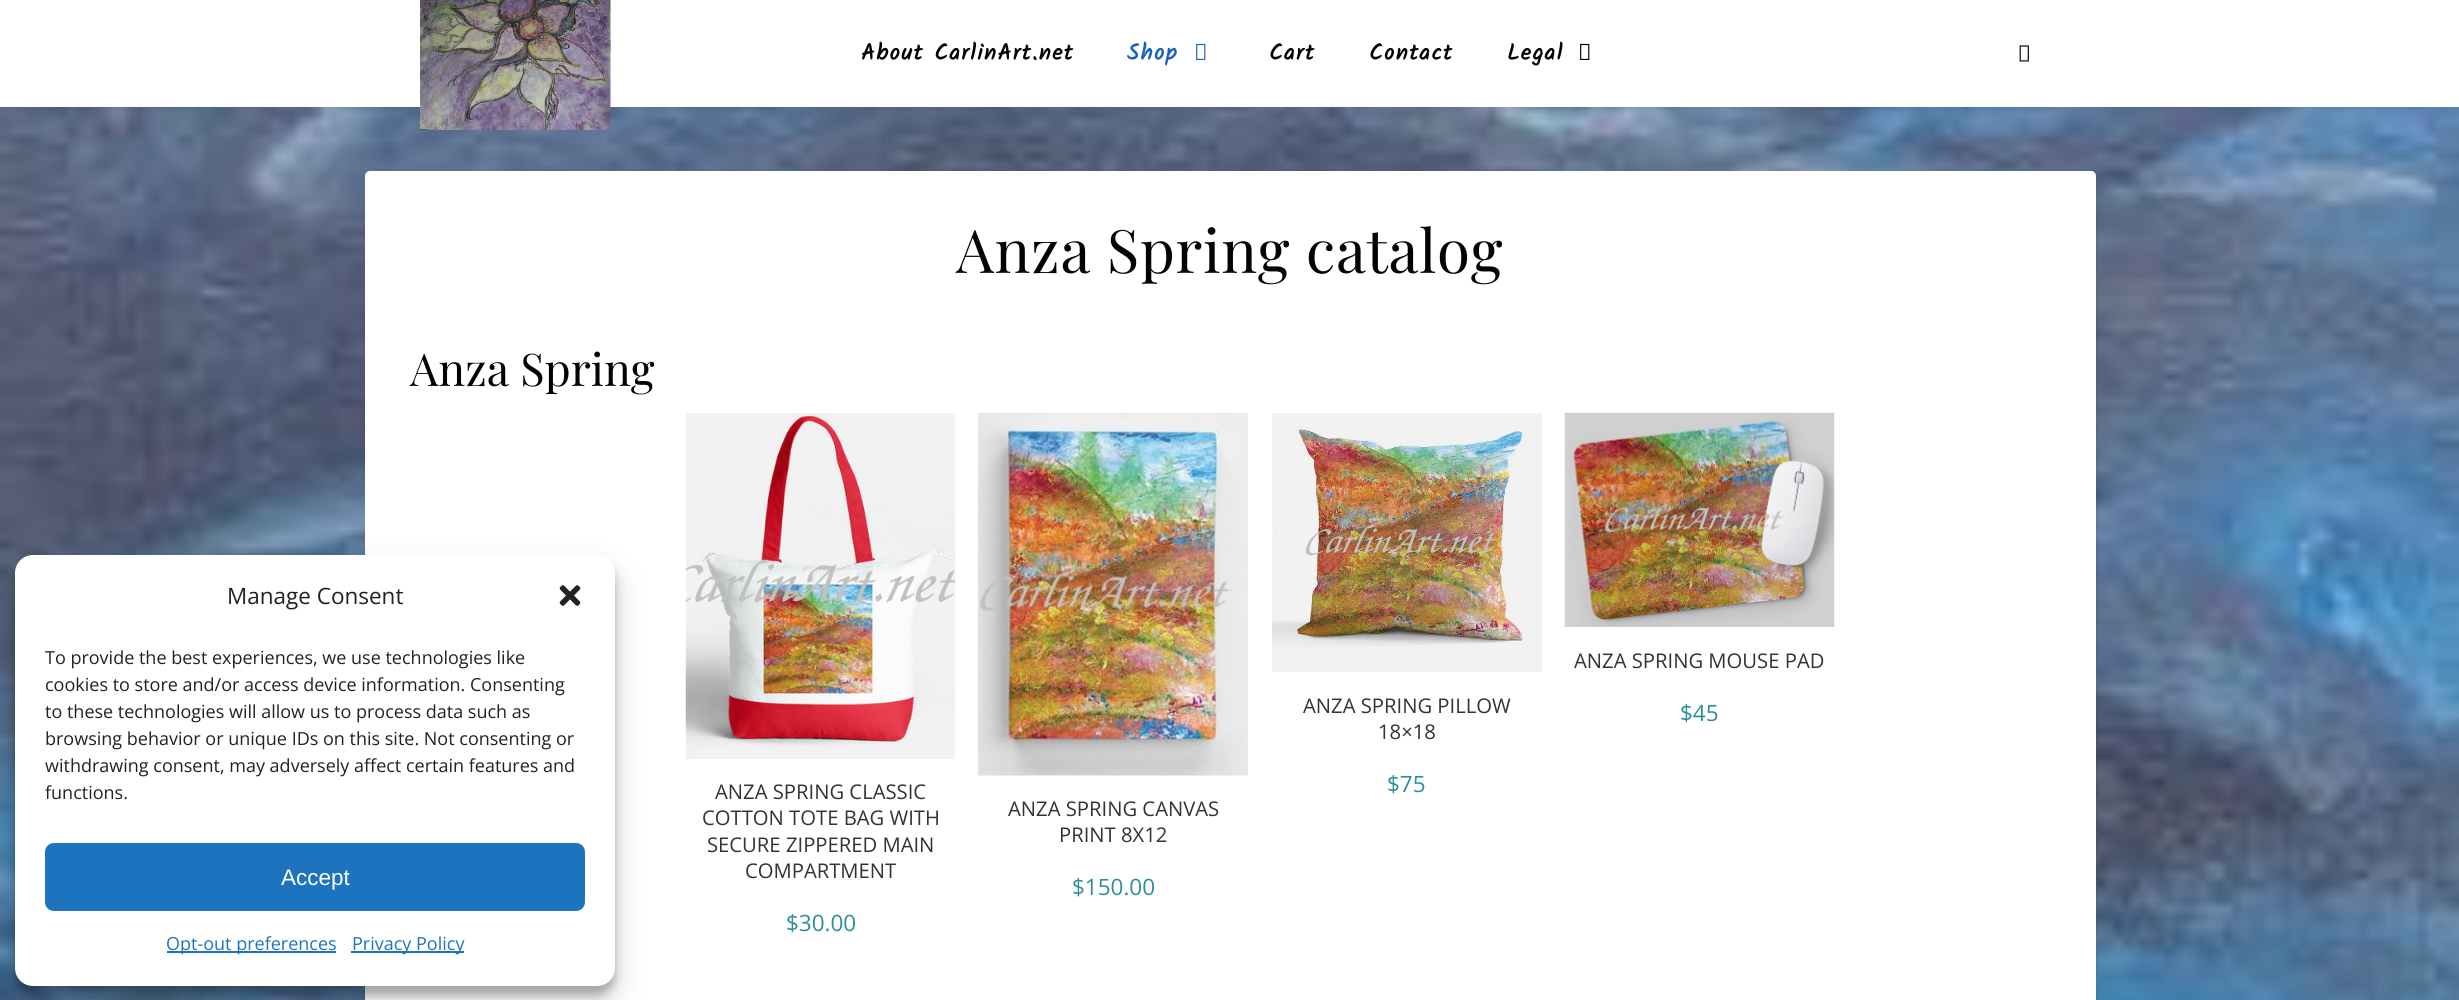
#include <cairo.h>
#include <math.h>
#include <stddef.h>

static cairo_t *ctx;

static void use_color(int r, int g, int b) {
    cairo_set_source_rgb(ctx, r / 255.0, g / 255.0, b / 255.0);
}

static void spaced_text(double x, double y, const char *s, double letter, double word) {
    cairo_move_to(ctx, x, y);
    while (*s) {
        char ch[5] = {0};
        int n = 0;
        do ch[n++] = *s++; while ((*s & 0xC0) == 0x80);
        cairo_show_text(ctx, ch);
        cairo_rel_move_to(ctx, letter + word * (*ch == ' '), 0);
    }
}

static void round_rect(double x, double y, double w, double h, double r) {
    cairo_new_sub_path(ctx);
    cairo_arc(ctx, x + w - r, y + h - r, r, 0, M_PI / 2);
    cairo_arc(ctx, x + r, y + h - r, r, M_PI / 2, M_PI);
    cairo_arc(ctx, x + r, y + r, r, M_PI, 1.5 * M_PI);
    cairo_arc(ctx, x + w - r, y + r, r, 1.5 * M_PI, 2 * M_PI);
    cairo_close_path(ctx);
}

static void shadow(double x, double y, double w, double h, double r, double blur, double alpha) {
    cairo_push_group_with_content(ctx, CAIRO_CONTENT_ALPHA);
    cairo_set_operator(ctx, CAIRO_OPERATOR_SOURCE);
    for (int i = 15; i >= -15 && fmin(w, h) + blur * i / 3 > 0; i -= 2) {
        double e = blur * i / 6;
        cairo_set_source_rgba(ctx, 0, 0, 0, alpha * erfc((i - 1) / 8.5) / 2);
        round_rect(x - e, y - e, w + 2 * e, h + 2 * e, fmax(0, fmin(r + e + blur * .6, fmin(w, h) / 2 + e)));
        cairo_fill(ctx);
    }
    cairo_pattern_t *soft = cairo_pop_group(ctx);
    cairo_mask(ctx, soft);
    cairo_pattern_destroy(soft);
}

static void picture(const char *path, double x, double y, double w, double h) {
    cairo_surface_t *image = cairo_image_surface_create_from_png(path);
    cairo_save(ctx);
    cairo_set_source_surface(ctx, image, x, y);
    cairo_rectangle(ctx, x, y, w, h);
    cairo_fill(ctx);
    cairo_restore(ctx);
    cairo_surface_destroy(image);
}

int main(void) {
    cairo_surface_t *surface = cairo_image_surface_create(CAIRO_FORMAT_RGB24, 2459, 1000);
    ctx = cairo_create(surface);
    cairo_font_options_t *options = cairo_font_options_create();
    cairo_font_options_set_hint_metrics(options, CAIRO_HINT_METRICS_OFF);
    cairo_font_options_set_hint_style(options, CAIRO_HINT_STYLE_NONE);
    cairo_set_font_options(ctx, options);
    cairo_set_miter_limit(ctx, 4);
    use_color(255, 255, 255);
    cairo_paint(ctx);
    picture("img1.png", 0, 107, 2459, 893);
    use_color(0, 0, 0);
    shadow(366, 173, 1731, 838, 5, 2, 0.1);
    use_color(255, 255, 255);
    round_rect(365, 171, 1731, 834, 5);
    cairo_fill(ctx);
    use_color(0, 0, 0);
    shadow(15, 564, 600, 431, 18, 4.5, 0.23);
    shadow(15, 570, 600, 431, 18, 15, 0.19);
    use_color(255, 255, 255);
    round_rect(15, 555, 600, 431, 18);
    cairo_fill(ctx);
    cairo_select_font_face(ctx, "Open Sans", CAIRO_FONT_SLANT_NORMAL, CAIRO_FONT_WEIGHT_NORMAL);
    cairo_set_font_size(ctx, 22.5);
    use_color(34, 34, 34);
    cairo_move_to(ctx, 227, 604);
    cairo_show_text(ctx, "Manage Consent");
    picture("img2.png", 559, 585, 22, 21);
    cairo_set_font_size(ctx, 18);
    cairo_move_to(ctx, 45, 664);
    cairo_show_text(ctx, "To provide the best experiences, we use technologies like");
    cairo_move_to(ctx, 45, 691);
    cairo_show_text(ctx, "cookies to store and/or access device information. Consenting");
    cairo_move_to(ctx, 45, 718);
    cairo_show_text(ctx, "to these technologies will allow us to process data such as");
    cairo_move_to(ctx, 45, 745);
    cairo_show_text(ctx, "browsing behavior or unique IDs on this site. Not consenting or");
    cairo_move_to(ctx, 45, 772);
    cairo_show_text(ctx, "withdrawing consent, may adversely affect certain features and");
    cairo_move_to(ctx, 45, 799);
    cairo_show_text(ctx, "functions.");
    use_color(30, 115, 190);
    round_rect(46, 844, 538, 66, 8);
    cairo_fill_preserve(ctx);
    cairo_stroke(ctx);
    cairo_select_font_face(ctx, "Liberation Sans", CAIRO_FONT_SLANT_NORMAL, CAIRO_FONT_WEIGHT_NORMAL);
    cairo_set_font_size(ctx, 22.5);
    use_color(255, 255, 255);
    cairo_move_to(ctx, 281, 885);
    cairo_show_text(ctx, "Accept");
    use_color(30, 115, 190);
    cairo_rectangle(ctx, 167, 951, 169, 2);
    cairo_fill(ctx);
    cairo_select_font_face(ctx, "Open Sans", CAIRO_FONT_SLANT_NORMAL, CAIRO_FONT_WEIGHT_NORMAL);
    cairo_set_font_size(ctx, 18);
    cairo_move_to(ctx, 166, 950);
    cairo_show_text(ctx, "Opt-out preferences");
    cairo_rectangle(ctx, 351, 951, 113, 2);
    cairo_fill(ctx);
    cairo_move_to(ctx, 352, 950);
    cairo_show_text(ctx, "Privacy Policy");
    use_color(0, 0, 0);
    shadow(0, 2, 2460, 106, 0, 4, 0.1);
    use_color(255, 255, 255);
    cairo_rectangle(ctx, 0, 0, 2459, 107);
    cairo_fill(ctx);
    picture("img3.png", 420, 0, 191, 130);
    cairo_select_font_face(ctx, "Kalam", CAIRO_FONT_SLANT_NORMAL, CAIRO_FONT_WEIGHT_BOLD);
    cairo_set_font_size(ctx, 22.5);
    use_color(3, 3, 3);
    spaced_text(861, 60, "About CarlinArt.net", 1.5, 0);
    use_color(24, 96, 191);
    spaced_text(1127, 60, "Shop", 1.5, 0);
    picture("img4.png", 1196, 43, 10, 17);
    use_color(3, 3, 3);
    spaced_text(1269, 60, "Cart", 1.5, 0);
    spaced_text(1369, 60, "Contact", 1.5, 0);
    spaced_text(1507, 60, "Legal", 1.5, 0);
    picture("img5.png", 1580, 43, 10, 17);
    picture("img6.png", 2019, 45, 10, 17);
    cairo_select_font_face(ctx, "Playfair Display", CAIRO_FONT_SLANT_NORMAL, CAIRO_FONT_WEIGHT_NORMAL);
    cairo_set_font_size(ctx, 60);
    spaced_text(956, 273, "Anza Spring catalog", 0.75, 0);
    cairo_set_font_size(ctx, 45);
    cairo_move_to(ctx, 410, 386);
    cairo_show_text(ctx, "Anza Spring");
    picture("img7.png", 1564, 412, 271, 215);
    cairo_select_font_face(ctx, "Open Sans", CAIRO_FONT_SLANT_NORMAL, CAIRO_FONT_WEIGHT_NORMAL);
    cairo_set_font_size(ctx, 20.25);
    use_color(51, 51, 51);
    cairo_move_to(ctx, 1574, 668);
    cairo_show_text(ctx, "ANZA SPRING MOUSE PAD");
    cairo_set_font_size(ctx, 22.5);
    use_color(46, 143, 154);
    cairo_move_to(ctx, 1680, 721);
    cairo_show_text(ctx, "$45");
    picture("img8.png", 1272, 413, 270, 259);
    cairo_set_font_size(ctx, 20.25);
    use_color(51, 51, 51);
    cairo_move_to(ctx, 1303, 713);
    cairo_show_text(ctx, "ANZA SPRING PILLOW");
    cairo_move_to(ctx, 1378, 739);
    cairo_show_text(ctx, "18×18");
    cairo_set_font_size(ctx, 22.5);
    use_color(46, 143, 154);
    cairo_move_to(ctx, 1387, 792);
    cairo_show_text(ctx, "$75");
    picture("img9.png", 685, 413, 271, 346);
    cairo_set_font_size(ctx, 20.25);
    use_color(51, 51, 51);
    cairo_move_to(ctx, 715, 799);
    cairo_show_text(ctx, "ANZA SPRING CLASSIC");
    cairo_move_to(ctx, 702, 825);
    cairo_show_text(ctx, "COTTON TOTE BAG WITH");
    cairo_move_to(ctx, 707, 852);
    cairo_show_text(ctx, "SECURE ZIPPERED MAIN");
    cairo_move_to(ctx, 745, 878);
    cairo_show_text(ctx, "COMPARTMENT");
    cairo_set_font_size(ctx, 22.5);
    use_color(46, 143, 154);
    cairo_move_to(ctx, 786, 931);
    cairo_show_text(ctx, "$30.00");
    picture("img10.png", 978, 412, 270, 364);
    cairo_set_font_size(ctx, 20.25);
    use_color(51, 51, 51);
    cairo_move_to(ctx, 1008, 816);
    cairo_show_text(ctx, "ANZA SPRING CANVAS");
    cairo_move_to(ctx, 1059, 842);
    cairo_show_text(ctx, "PRINT 8X12");
    cairo_set_font_size(ctx, 22.5);
    use_color(46, 143, 154);
    cairo_move_to(ctx, 1072, 895);
    cairo_show_text(ctx, "$150.00");
    cairo_surface_write_to_png(surface, "result.png");
    cairo_font_options_destroy(options);
    cairo_destroy(ctx);
    cairo_surface_destroy(surface);
    return 0;
}
